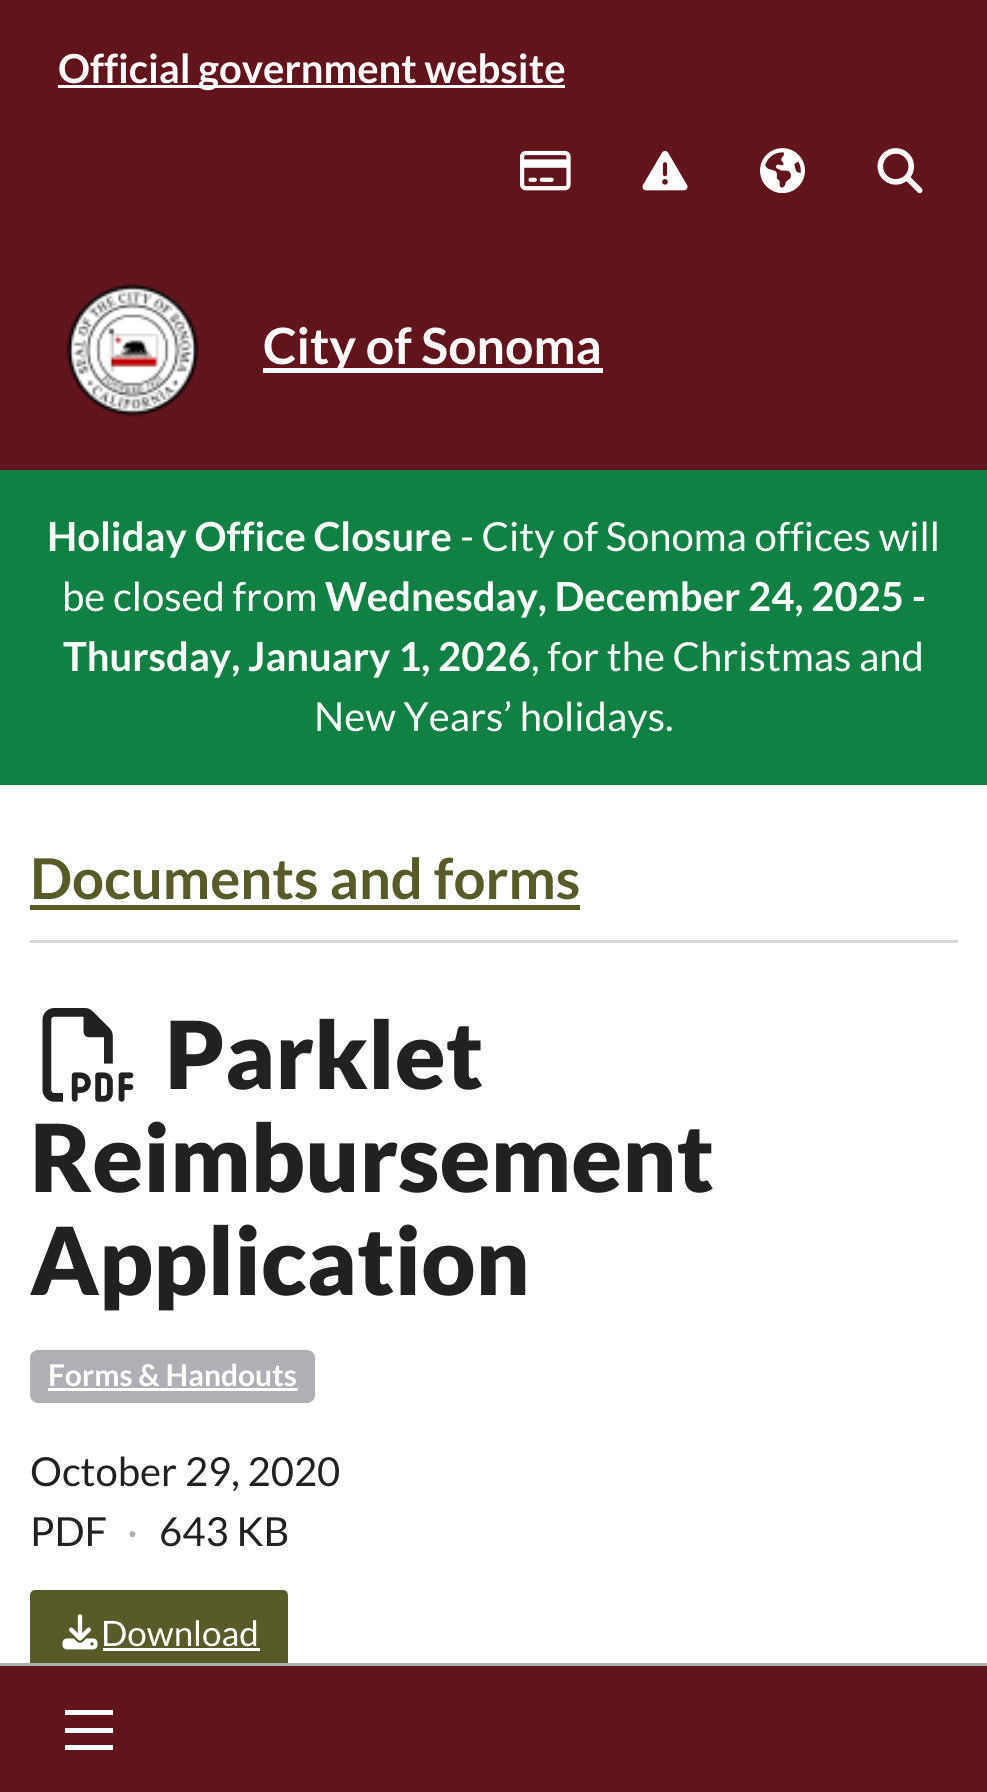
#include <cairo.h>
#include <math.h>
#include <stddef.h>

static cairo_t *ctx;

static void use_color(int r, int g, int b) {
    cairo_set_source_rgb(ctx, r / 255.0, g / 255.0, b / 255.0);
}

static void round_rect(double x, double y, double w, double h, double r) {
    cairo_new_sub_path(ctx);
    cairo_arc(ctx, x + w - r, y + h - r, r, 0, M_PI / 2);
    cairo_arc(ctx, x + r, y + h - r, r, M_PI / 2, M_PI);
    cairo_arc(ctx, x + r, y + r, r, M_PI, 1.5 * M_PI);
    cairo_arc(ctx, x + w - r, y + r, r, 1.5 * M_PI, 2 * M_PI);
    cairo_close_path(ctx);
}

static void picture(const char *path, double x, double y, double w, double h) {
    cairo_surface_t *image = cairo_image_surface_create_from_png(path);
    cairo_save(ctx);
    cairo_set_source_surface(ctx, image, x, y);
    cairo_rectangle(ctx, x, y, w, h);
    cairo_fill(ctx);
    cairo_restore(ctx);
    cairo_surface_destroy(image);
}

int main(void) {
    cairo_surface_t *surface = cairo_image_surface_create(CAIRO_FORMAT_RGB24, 987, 1792);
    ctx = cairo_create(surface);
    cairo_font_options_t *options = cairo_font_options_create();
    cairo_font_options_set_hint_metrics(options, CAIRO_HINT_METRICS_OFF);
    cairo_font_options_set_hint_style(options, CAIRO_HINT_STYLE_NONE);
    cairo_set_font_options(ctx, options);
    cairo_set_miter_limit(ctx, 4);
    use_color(97, 20, 28);
    cairo_paint(ctx);
    use_color(255, 255, 255);
    cairo_rectangle(ctx, 58, 85, 507, 3);
    cairo_fill(ctx);
    cairo_select_font_face(ctx, "Lato", CAIRO_FONT_SLANT_NORMAL, CAIRO_FONT_WEIGHT_BOLD);
    cairo_set_font_size(ctx, 40);
    cairo_move_to(ctx, 58, 83);
    cairo_show_text(ctx, "Official government website");
    picture("img1.png", 520, 150, 51, 41);
    picture("img2.png", 642, 151, 46, 40);
    picture("img3.png", 760, 148, 45, 46);
    picture("img4.png", 877, 148, 46, 46);
    picture("img5.png", 66, 283, 133, 134);
    cairo_rectangle(ctx, 263, 368, 340, 5);
    cairo_fill(ctx);
    cairo_set_font_size(ctx, 50);
    cairo_move_to(ctx, 263, 364);
    cairo_show_text(ctx, "City of Sonoma");
    cairo_rectangle(ctx, 0, 785, 987, 878);
    cairo_fill(ctx);
    use_color(88, 91, 39);
    round_rect(31.5, 1591.5, 255, 80, 3.5);
    cairo_fill_preserve(ctx);
    cairo_set_line_width(ctx, 3);
    cairo_stroke(ctx);
    use_color(97, 20, 28);
    cairo_rectangle(ctx, 30, 1666, 258, 7);
    cairo_fill(ctx);
    use_color(174, 176, 181);
    cairo_rectangle(ctx, 0, 1663, 987, 3);
    cairo_fill(ctx);
    use_color(255, 255, 255);
    cairo_rectangle(ctx, 65, 1728, 48, 5);
    cairo_fill(ctx);
    cairo_rectangle(ctx, 65, 1710, 48, 5);
    cairo_fill(ctx);
    cairo_rectangle(ctx, 65, 1745, 48, 5);
    cairo_fill(ctx);
    use_color(16, 128, 67);
    cairo_rectangle(ctx, 0, 470, 987, 315);
    cairo_fill(ctx);
    cairo_set_font_size(ctx, 40);
    use_color(255, 255, 255);
    cairo_move_to(ctx, 47, 551);
    cairo_show_text(ctx, "Holiday Office Closure");
    cairo_select_font_face(ctx, "Lato", CAIRO_FONT_SLANT_NORMAL, CAIRO_FONT_WEIGHT_NORMAL);
    cairo_move_to(ctx, 460, 551);
    cairo_show_text(ctx, "- City of Sonoma offices will");
    cairo_move_to(ctx, 62, 611);
    cairo_show_text(ctx, "be closed from");
    cairo_select_font_face(ctx, "Lato", CAIRO_FONT_SLANT_NORMAL, CAIRO_FONT_WEIGHT_BOLD);
    cairo_move_to(ctx, 325, 611);
    cairo_show_text(ctx, "Wednesday, December 24, 2025 -");
    cairo_move_to(ctx, 63, 671);
    cairo_show_text(ctx, "Thursday, January 1, 2026");
    cairo_select_font_face(ctx, "Lato", CAIRO_FONT_SLANT_NORMAL, CAIRO_FONT_WEIGHT_NORMAL);
    cairo_move_to(ctx, 531, 671);
    cairo_show_text(ctx, ", for the Christmas and");
    cairo_move_to(ctx, 314, 731);
    cairo_show_text(ctx, "New Years’ holidays.");
    use_color(214, 215, 217);
    cairo_rectangle(ctx, 30, 940, 928, 3);
    cairo_fill(ctx);
    cairo_select_font_face(ctx, "Lato", CAIRO_FONT_SLANT_NORMAL, CAIRO_FONT_WEIGHT_BOLD);
    cairo_set_font_size(ctx, 56.25);
    use_color(88, 91, 39);
    cairo_move_to(ctx, 30, 899);
    cairo_show_text(ctx, "Documents and forms");
    cairo_rectangle(ctx, 30, 905, 550, 5);
    cairo_fill(ctx);
    picture("img6.png", 42, 1008, 92, 94);
    cairo_select_font_face(ctx, "Lato Black", CAIRO_FONT_SLANT_NORMAL, CAIRO_FONT_WEIGHT_NORMAL);
    cairo_set_font_size(ctx, 93.75);
    use_color(33, 33, 33);
    cairo_move_to(ctx, 165, 1089);
    cairo_show_text(ctx, "Parklet");
    cairo_move_to(ctx, 30, 1192);
    cairo_show_text(ctx, "Reimbursement");
    cairo_move_to(ctx, 30, 1295);
    cairo_show_text(ctx, "Application");
    use_color(174, 176, 181);
    round_rect(30, 1350, 285, 53, 8);
    cairo_fill(ctx);
    cairo_select_font_face(ctx, "Lato", CAIRO_FONT_SLANT_NORMAL, CAIRO_FONT_WEIGHT_BOLD);
    cairo_set_font_size(ctx, 30);
    use_color(255, 255, 255);
    cairo_move_to(ctx, 48, 1386);
    cairo_show_text(ctx, "Forms & Handouts");
    cairo_rectangle(ctx, 48, 1388, 250, 3);
    cairo_fill(ctx);
    cairo_select_font_face(ctx, "Lato", CAIRO_FONT_SLANT_NORMAL, CAIRO_FONT_WEIGHT_NORMAL);
    cairo_set_font_size(ctx, 40);
    use_color(33, 33, 33);
    cairo_move_to(ctx, 30, 1486);
    cairo_show_text(ctx, "October 29, 2020");
    cairo_move_to(ctx, 30, 1546);
    cairo_show_text(ctx, "PDF");
    use_color(174, 176, 181);
    cairo_move_to(ctx, 127, 1546);
    cairo_show_text(ctx, "·");
    use_color(33, 33, 33);
    cairo_move_to(ctx, 159, 1546);
    cairo_show_text(ctx, "643 KB");
    picture("img7.png", 62, 1614, 36, 36);
    cairo_set_font_size(ctx, 35);
    use_color(255, 255, 255);
    cairo_move_to(ctx, 101, 1646);
    cairo_show_text(ctx, "Download");
    cairo_rectangle(ctx, 103, 1648, 157, 3);
    cairo_fill(ctx);
    cairo_surface_write_to_png(surface, "result.png");
    cairo_font_options_destroy(options);
    cairo_destroy(ctx);
    cairo_surface_destroy(surface);
    return 0;
}
